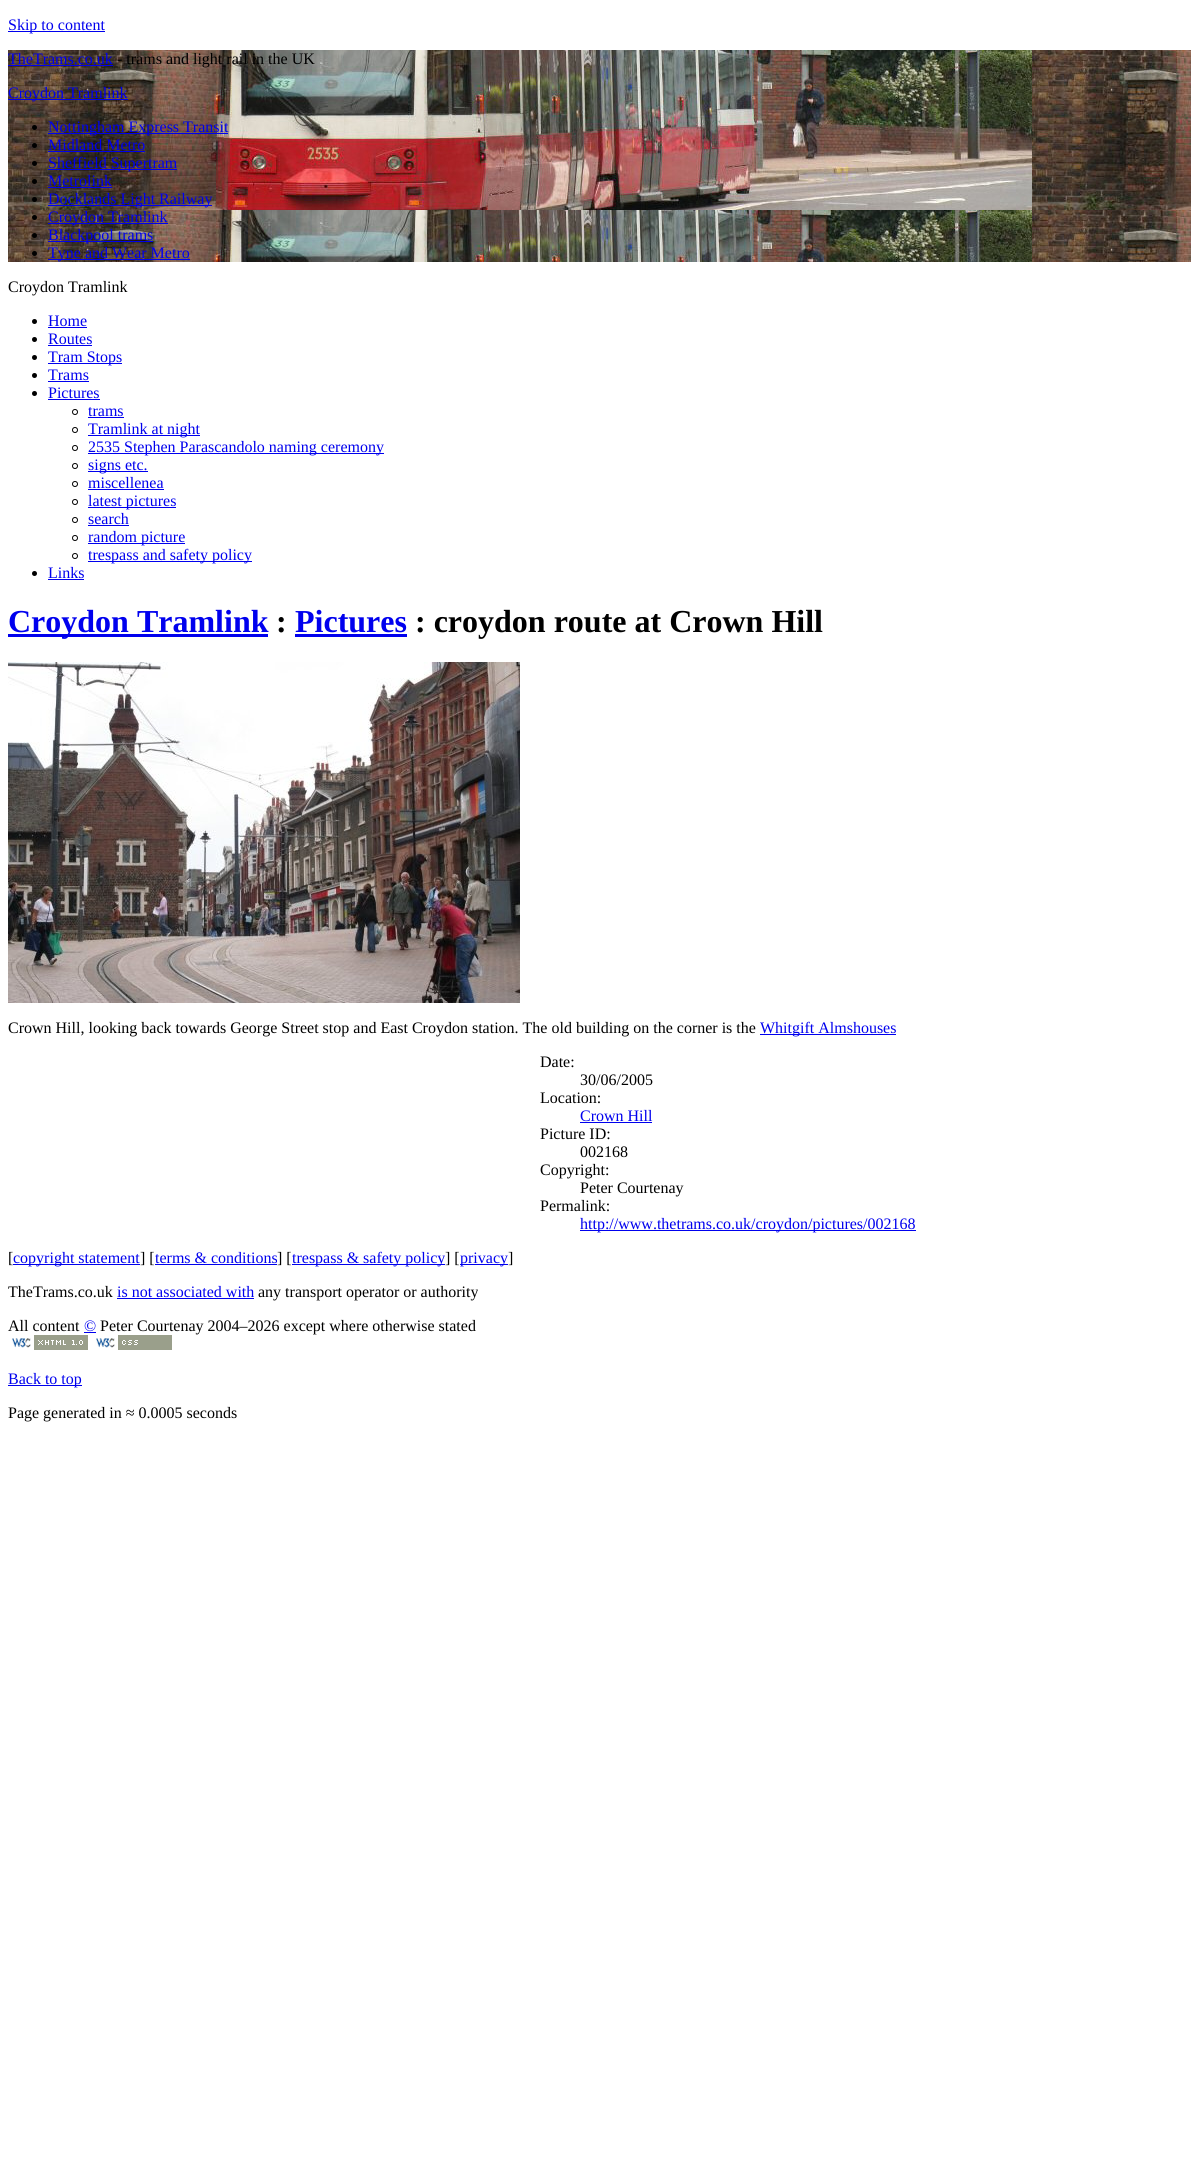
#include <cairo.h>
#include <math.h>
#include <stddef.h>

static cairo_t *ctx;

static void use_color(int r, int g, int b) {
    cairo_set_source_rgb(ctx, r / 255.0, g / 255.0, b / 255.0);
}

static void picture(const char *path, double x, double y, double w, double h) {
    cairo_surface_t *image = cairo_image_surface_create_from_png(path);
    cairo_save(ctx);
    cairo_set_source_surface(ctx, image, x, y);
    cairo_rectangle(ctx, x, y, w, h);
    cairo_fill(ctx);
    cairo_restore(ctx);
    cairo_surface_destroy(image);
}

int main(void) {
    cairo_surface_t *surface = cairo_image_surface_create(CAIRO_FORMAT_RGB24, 1199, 2161);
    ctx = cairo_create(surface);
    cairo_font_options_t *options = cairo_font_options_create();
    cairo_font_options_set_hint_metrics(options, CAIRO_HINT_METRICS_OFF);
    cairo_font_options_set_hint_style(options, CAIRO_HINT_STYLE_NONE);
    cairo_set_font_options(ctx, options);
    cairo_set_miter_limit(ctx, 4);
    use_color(255, 255, 255);
    cairo_paint(ctx);
    use_color(0, 0, 238);
    cairo_rectangle(ctx, 8, 31, 97, 1);
    cairo_fill(ctx);
    cairo_select_font_face(ctx, "Liberation Serif", CAIRO_FONT_SLANT_NORMAL, CAIRO_FONT_WEIGHT_NORMAL);
    cairo_set_font_size(ctx, 16);
    cairo_move_to(ctx, 8, 30);
    cairo_show_text(ctx, "Skip to content");
    picture("img1.png", 8, 50, 1183, 212);
    cairo_move_to(ctx, 8, 64);
    cairo_show_text(ctx, "TheTrams.co.uk");
    cairo_rectangle(ctx, 8, 65, 105, 1);
    cairo_fill(ctx);
    use_color(0, 0, 0);
    cairo_move_to(ctx, 117, 64);
    cairo_show_text(ctx, "- trams and light rail in the UK");
    use_color(0, 0, 238);
    cairo_rectangle(ctx, 8, 99, 120, 1);
    cairo_fill(ctx);
    cairo_move_to(ctx, 8, 98);
    cairo_show_text(ctx, "Croydon Tramlink");
    use_color(0, 0, 0);
    cairo_new_path(ctx);
    cairo_arc(ctx, 34.5, 127.5, 2.5, 0, 2 * M_PI);
    cairo_fill(ctx);
    use_color(0, 0, 238);
    cairo_rectangle(ctx, 48, 133, 180, 1);
    cairo_fill(ctx);
    cairo_move_to(ctx, 48, 132);
    cairo_show_text(ctx, "Nottingham Express Transit");
    use_color(0, 0, 0);
    cairo_new_path(ctx);
    cairo_arc(ctx, 34.5, 145.5, 2.5, 0, 2 * M_PI);
    cairo_fill(ctx);
    use_color(0, 0, 238);
    cairo_move_to(ctx, 48, 150);
    cairo_show_text(ctx, "Midland Metro");
    cairo_rectangle(ctx, 48, 151, 97, 1);
    cairo_fill(ctx);
    use_color(0, 0, 0);
    cairo_arc(ctx, 34.5, 163.5, 2.5, 0, 2 * M_PI);
    cairo_fill(ctx);
    use_color(0, 0, 238);
    cairo_rectangle(ctx, 48, 169, 129, 1);
    cairo_fill(ctx);
    cairo_move_to(ctx, 48, 168);
    cairo_show_text(ctx, "Sheffield Supertram");
    use_color(0, 0, 0);
    cairo_new_path(ctx);
    cairo_arc(ctx, 34.5, 181.5, 2.5, 0, 2 * M_PI);
    cairo_fill(ctx);
    use_color(0, 0, 238);
    cairo_move_to(ctx, 48, 186);
    cairo_show_text(ctx, "Metrolink");
    cairo_rectangle(ctx, 48, 187, 64, 1);
    cairo_fill(ctx);
    use_color(0, 0, 0);
    cairo_arc(ctx, 34.5, 199.5, 2.5, 0, 2 * M_PI);
    cairo_fill(ctx);
    use_color(0, 0, 238);
    cairo_rectangle(ctx, 48, 205, 164, 1);
    cairo_fill(ctx);
    cairo_move_to(ctx, 48, 204);
    cairo_show_text(ctx, "Docklands Light Railway");
    use_color(0, 0, 0);
    cairo_new_path(ctx);
    cairo_arc(ctx, 34.5, 217.5, 2.5, 0, 2 * M_PI);
    cairo_fill(ctx);
    use_color(0, 0, 238);
    cairo_rectangle(ctx, 48, 223, 120, 1);
    cairo_fill(ctx);
    cairo_move_to(ctx, 48, 222);
    cairo_show_text(ctx, "Croydon Tramlink");
    use_color(0, 0, 0);
    cairo_new_path(ctx);
    cairo_arc(ctx, 34.5, 235.5, 2.5, 0, 2 * M_PI);
    cairo_fill(ctx);
    use_color(0, 0, 238);
    cairo_rectangle(ctx, 48, 241, 105, 1);
    cairo_fill(ctx);
    cairo_move_to(ctx, 48, 240);
    cairo_show_text(ctx, "Blackpool trams");
    use_color(0, 0, 0);
    cairo_new_path(ctx);
    cairo_arc(ctx, 34.5, 253.5, 2.5, 0, 2 * M_PI);
    cairo_fill(ctx);
    use_color(0, 0, 238);
    cairo_rectangle(ctx, 48, 259, 142, 1);
    cairo_fill(ctx);
    cairo_move_to(ctx, 48, 258);
    cairo_show_text(ctx, "Tyne and Wear Metro");
    use_color(0, 0, 0);
    cairo_move_to(ctx, 8, 292);
    cairo_show_text(ctx, "Croydon Tramlink");
    cairo_new_path(ctx);
    cairo_arc(ctx, 34.5, 321.5, 2.5, 0, 2 * M_PI);
    cairo_fill(ctx);
    use_color(0, 0, 238);
    cairo_move_to(ctx, 48, 326);
    cairo_show_text(ctx, "Home");
    cairo_rectangle(ctx, 48, 327, 39, 1);
    cairo_fill(ctx);
    use_color(0, 0, 0);
    cairo_arc(ctx, 34.5, 339.5, 2.5, 0, 2 * M_PI);
    cairo_fill(ctx);
    use_color(0, 0, 238);
    cairo_move_to(ctx, 48, 344);
    cairo_show_text(ctx, "Routes");
    cairo_rectangle(ctx, 48, 345, 44, 1);
    cairo_fill(ctx);
    use_color(0, 0, 0);
    cairo_arc(ctx, 34.5, 357.5, 2.5, 0, 2 * M_PI);
    cairo_fill(ctx);
    use_color(0, 0, 238);
    cairo_rectangle(ctx, 48, 363, 74, 1);
    cairo_fill(ctx);
    cairo_move_to(ctx, 48, 362);
    cairo_show_text(ctx, "Tram Stops");
    use_color(0, 0, 0);
    cairo_new_path(ctx);
    cairo_arc(ctx, 34.5, 375.5, 2.5, 0, 2 * M_PI);
    cairo_fill(ctx);
    use_color(0, 0, 238);
    cairo_move_to(ctx, 48, 380);
    cairo_show_text(ctx, "Trams");
    cairo_rectangle(ctx, 48, 381, 41, 1);
    cairo_fill(ctx);
    use_color(0, 0, 0);
    cairo_arc(ctx, 34.5, 393.5, 2.5, 0, 2 * M_PI);
    cairo_fill(ctx);
    use_color(0, 0, 238);
    cairo_move_to(ctx, 48, 398);
    cairo_show_text(ctx, "Pictures");
    cairo_rectangle(ctx, 48, 399, 52, 1);
    cairo_fill(ctx);
    cairo_arc(ctx, 75, 412, 2.5, 0, 2 * M_PI);
    use_color(0, 0, 0);
    cairo_set_line_width(ctx, 1);
    cairo_stroke(ctx);
    use_color(0, 0, 238);
    cairo_move_to(ctx, 88, 416);
    cairo_show_text(ctx, "trams");
    cairo_rectangle(ctx, 88, 417, 36, 1);
    cairo_fill(ctx);
    cairo_arc(ctx, 75, 430, 2.5, 0, 2 * M_PI);
    use_color(0, 0, 0);
    cairo_stroke(ctx);
    use_color(0, 0, 238);
    cairo_rectangle(ctx, 88, 435, 112, 1);
    cairo_fill(ctx);
    cairo_move_to(ctx, 88, 434);
    cairo_show_text(ctx, "Tramlink at night");
    cairo_new_path(ctx);
    cairo_arc(ctx, 75, 448, 2.5, 0, 2 * M_PI);
    use_color(0, 0, 0);
    cairo_stroke(ctx);
    use_color(0, 0, 238);
    cairo_rectangle(ctx, 88, 453, 296, 1);
    cairo_fill(ctx);
    cairo_move_to(ctx, 88, 452);
    cairo_show_text(ctx, "2535 Stephen Parascandolo naming ceremony");
    cairo_new_path(ctx);
    cairo_arc(ctx, 75, 466, 2.5, 0, 2 * M_PI);
    use_color(0, 0, 0);
    cairo_stroke(ctx);
    use_color(0, 0, 238);
    cairo_rectangle(ctx, 88, 471, 60, 1);
    cairo_fill(ctx);
    cairo_move_to(ctx, 88, 470);
    cairo_show_text(ctx, "signs etc.");
    cairo_new_path(ctx);
    cairo_arc(ctx, 75, 484, 2.5, 0, 2 * M_PI);
    use_color(0, 0, 0);
    cairo_stroke(ctx);
    use_color(0, 0, 238);
    cairo_move_to(ctx, 88, 488);
    cairo_show_text(ctx, "miscellenea");
    cairo_rectangle(ctx, 88, 489, 76, 1);
    cairo_fill(ctx);
    cairo_arc(ctx, 75, 502, 2.5, 0, 2 * M_PI);
    use_color(0, 0, 0);
    cairo_stroke(ctx);
    use_color(0, 0, 238);
    cairo_rectangle(ctx, 88, 507, 88, 1);
    cairo_fill(ctx);
    cairo_move_to(ctx, 88, 506);
    cairo_show_text(ctx, "latest pictures");
    cairo_new_path(ctx);
    cairo_arc(ctx, 75, 520, 2.5, 0, 2 * M_PI);
    use_color(0, 0, 0);
    cairo_stroke(ctx);
    use_color(0, 0, 238);
    cairo_move_to(ctx, 88, 524);
    cairo_show_text(ctx, "search");
    cairo_rectangle(ctx, 88, 525, 41, 1);
    cairo_fill(ctx);
    cairo_arc(ctx, 75, 538, 2.5, 0, 2 * M_PI);
    use_color(0, 0, 0);
    cairo_stroke(ctx);
    use_color(0, 0, 238);
    cairo_rectangle(ctx, 88, 543, 97, 1);
    cairo_fill(ctx);
    cairo_move_to(ctx, 88, 542);
    cairo_show_text(ctx, "random picture");
    cairo_new_path(ctx);
    cairo_arc(ctx, 75, 556, 2.5, 0, 2 * M_PI);
    use_color(0, 0, 0);
    cairo_stroke(ctx);
    use_color(0, 0, 238);
    cairo_rectangle(ctx, 88, 561, 164, 1);
    cairo_fill(ctx);
    cairo_move_to(ctx, 88, 560);
    cairo_show_text(ctx, "trespass and safety policy");
    use_color(0, 0, 0);
    cairo_new_path(ctx);
    cairo_arc(ctx, 34.5, 573.5, 2.5, 0, 2 * M_PI);
    cairo_fill(ctx);
    use_color(0, 0, 238);
    cairo_move_to(ctx, 48, 578);
    cairo_show_text(ctx, "Links");
    cairo_rectangle(ctx, 48, 579, 36, 1);
    cairo_fill(ctx);
    cairo_rectangle(ctx, 8, 634, 260, 3);
    cairo_fill(ctx);
    cairo_select_font_face(ctx, "Liberation Serif", CAIRO_FONT_SLANT_NORMAL, CAIRO_FONT_WEIGHT_BOLD);
    cairo_set_font_size(ctx, 32);
    cairo_move_to(ctx, 8, 632);
    cairo_show_text(ctx, "Croydon Tramlink");
    use_color(0, 0, 0);
    cairo_move_to(ctx, 276, 632);
    cairo_show_text(ctx, ":");
    use_color(0, 0, 238);
    cairo_move_to(ctx, 295, 632);
    cairo_show_text(ctx, "Pictures");
    cairo_rectangle(ctx, 295, 634, 112, 3);
    cairo_fill(ctx);
    use_color(0, 0, 0);
    cairo_move_to(ctx, 415, 632);
    cairo_show_text(ctx, ": croydon route at Crown Hill");
    picture("img2.png", 8, 662, 512, 341);
    cairo_select_font_face(ctx, "Liberation Serif", CAIRO_FONT_SLANT_NORMAL, CAIRO_FONT_WEIGHT_NORMAL);
    cairo_set_font_size(ctx, 16);
    cairo_move_to(ctx, 8, 1033);
    cairo_show_text(ctx, "Crown Hill, looking back towards George Street stop and East Croydon station. The old building on the corner is the");
    use_color(0, 0, 238);
    cairo_rectangle(ctx, 760, 1034, 136, 1);
    cairo_fill(ctx);
    cairo_move_to(ctx, 760, 1033);
    cairo_show_text(ctx, "Whitgift Almshouses");
    use_color(0, 0, 0);
    cairo_move_to(ctx, 540, 1067);
    cairo_show_text(ctx, "Date:");
    cairo_move_to(ctx, 580, 1085);
    cairo_show_text(ctx, "30/06/2005");
    cairo_move_to(ctx, 540, 1103);
    cairo_show_text(ctx, "Location:");
    use_color(0, 0, 238);
    cairo_move_to(ctx, 580, 1121);
    cairo_show_text(ctx, "Crown Hill");
    cairo_rectangle(ctx, 580, 1122, 72, 1);
    cairo_fill(ctx);
    use_color(0, 0, 0);
    cairo_move_to(ctx, 540, 1139);
    cairo_show_text(ctx, "Picture ID:");
    cairo_move_to(ctx, 580, 1157);
    cairo_show_text(ctx, "002168");
    cairo_move_to(ctx, 540, 1175);
    cairo_show_text(ctx, "Copyright:");
    cairo_move_to(ctx, 580, 1193);
    cairo_show_text(ctx, "Peter Courtenay");
    cairo_move_to(ctx, 540, 1211);
    cairo_show_text(ctx, "Permalink:");
    use_color(0, 0, 238);
    cairo_rectangle(ctx, 580, 1230, 336, 1);
    cairo_fill(ctx);
    cairo_move_to(ctx, 580, 1229);
    cairo_show_text(ctx, "http://www.thetrams.co.uk/croydon/pictures/002168");
    use_color(0, 0, 0);
    cairo_move_to(ctx, 8, 1263);
    cairo_show_text(ctx, "[");
    use_color(0, 0, 238);
    cairo_rectangle(ctx, 13, 1264, 127, 1);
    cairo_fill(ctx);
    cairo_move_to(ctx, 13, 1263);
    cairo_show_text(ctx, "copyright statement");
    use_color(0, 0, 0);
    cairo_move_to(ctx, 140, 1263);
    cairo_show_text(ctx, "] [");
    use_color(0, 0, 238);
    cairo_move_to(ctx, 155, 1263);
    cairo_show_text(ctx, "terms & conditions");
    cairo_rectangle(ctx, 155, 1264, 122, 1);
    cairo_fill(ctx);
    use_color(0, 0, 0);
    cairo_move_to(ctx, 277, 1263);
    cairo_show_text(ctx, "] [");
    use_color(0, 0, 238);
    cairo_rectangle(ctx, 292, 1264, 153, 1);
    cairo_fill(ctx);
    cairo_move_to(ctx, 292, 1263);
    cairo_show_text(ctx, "trespass & safety policy");
    use_color(0, 0, 0);
    cairo_move_to(ctx, 445, 1263);
    cairo_show_text(ctx, "] [");
    use_color(0, 0, 238);
    cairo_rectangle(ctx, 460, 1264, 48, 1);
    cairo_fill(ctx);
    cairo_move_to(ctx, 460, 1263);
    cairo_show_text(ctx, "privacy");
    use_color(0, 0, 0);
    cairo_move_to(ctx, 508, 1263);
    cairo_show_text(ctx, "]");
    cairo_move_to(ctx, 8, 1297);
    cairo_show_text(ctx, "TheTrams.co.uk");
    use_color(0, 0, 238);
    cairo_move_to(ctx, 117, 1297);
    cairo_show_text(ctx, "is not associated with");
    cairo_rectangle(ctx, 117, 1298, 137, 1);
    cairo_fill(ctx);
    use_color(0, 0, 0);
    cairo_move_to(ctx, 258, 1297);
    cairo_show_text(ctx, "any transport operator or authority");
    cairo_move_to(ctx, 8, 1331);
    cairo_show_text(ctx, "All content");
    use_color(0, 0, 238);
    cairo_move_to(ctx, 84, 1331);
    cairo_show_text(ctx, "©");
    cairo_rectangle(ctx, 84, 1332, 12, 1);
    cairo_fill(ctx);
    use_color(0, 0, 0);
    cairo_move_to(ctx, 100, 1331);
    cairo_show_text(ctx, "Peter Courtenay 2004–2026 except where otherwise stated");
    picture("img3.png", 12, 1335, 76, 15);
    picture("img4.png", 96, 1335, 76, 15);
    use_color(0, 0, 238);
    cairo_rectangle(ctx, 8, 1385, 74, 1);
    cairo_fill(ctx);
    cairo_move_to(ctx, 8, 1384);
    cairo_show_text(ctx, "Back to top");
    use_color(0, 0, 0);
    cairo_move_to(ctx, 8, 1418);
    cairo_show_text(ctx, "Page generated in ≈ 0.0005 seconds");
    cairo_surface_write_to_png(surface, "result.png");
    cairo_font_options_destroy(options);
    cairo_destroy(ctx);
    cairo_surface_destroy(surface);
    return 0;
}
